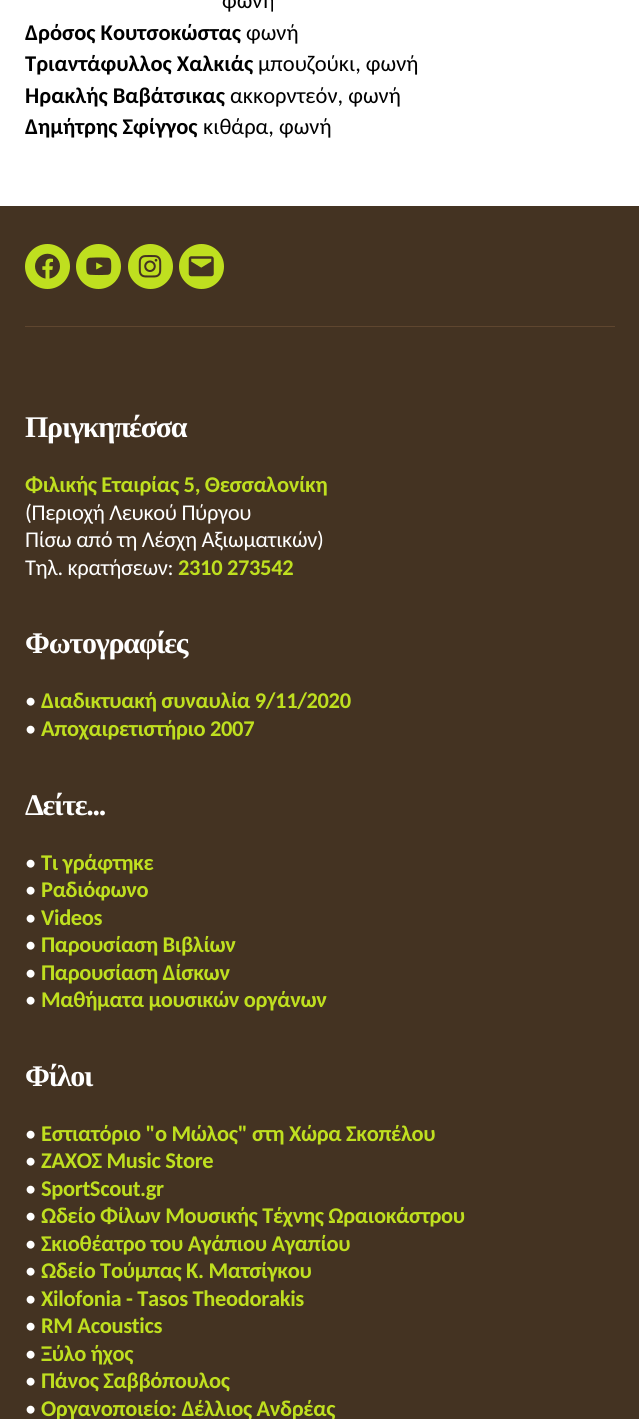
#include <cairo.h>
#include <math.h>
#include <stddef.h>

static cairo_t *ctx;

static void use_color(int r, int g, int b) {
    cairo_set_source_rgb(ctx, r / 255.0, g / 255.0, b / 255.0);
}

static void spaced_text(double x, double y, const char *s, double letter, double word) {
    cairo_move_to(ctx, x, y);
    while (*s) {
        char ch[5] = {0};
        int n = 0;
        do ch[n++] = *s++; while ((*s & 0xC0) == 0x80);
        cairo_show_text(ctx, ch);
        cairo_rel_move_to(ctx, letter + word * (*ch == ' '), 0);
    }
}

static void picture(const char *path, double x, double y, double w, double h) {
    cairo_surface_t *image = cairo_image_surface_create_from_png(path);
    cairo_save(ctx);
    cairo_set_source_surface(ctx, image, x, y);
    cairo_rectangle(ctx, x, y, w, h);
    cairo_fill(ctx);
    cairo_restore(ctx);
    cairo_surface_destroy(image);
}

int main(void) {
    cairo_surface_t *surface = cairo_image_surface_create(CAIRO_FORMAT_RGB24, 639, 1419);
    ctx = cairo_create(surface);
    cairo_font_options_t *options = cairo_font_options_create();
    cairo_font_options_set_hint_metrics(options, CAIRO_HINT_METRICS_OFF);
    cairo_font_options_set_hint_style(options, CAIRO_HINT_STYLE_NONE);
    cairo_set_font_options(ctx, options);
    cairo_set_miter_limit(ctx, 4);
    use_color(255, 255, 255);
    cairo_paint(ctx);
    cairo_select_font_face(ctx, "Carlito", CAIRO_FONT_SLANT_NORMAL, CAIRO_FONT_WEIGHT_NORMAL);
    cairo_set_font_size(ctx, 22.5);
    use_color(0, 0, 0);
    cairo_move_to(ctx, 222, 8);
    cairo_show_text(ctx, "φωνή");
    cairo_select_font_face(ctx, "Carlito", CAIRO_FONT_SLANT_NORMAL, CAIRO_FONT_WEIGHT_BOLD);
    cairo_move_to(ctx, 25, 40);
    cairo_show_text(ctx, "Δρόσος Κουτσοκώστας");
    cairo_select_font_face(ctx, "Carlito", CAIRO_FONT_SLANT_NORMAL, CAIRO_FONT_WEIGHT_NORMAL);
    cairo_move_to(ctx, 246, 40);
    cairo_show_text(ctx, "φωνή");
    cairo_select_font_face(ctx, "Carlito", CAIRO_FONT_SLANT_NORMAL, CAIRO_FONT_WEIGHT_BOLD);
    cairo_move_to(ctx, 25, 71);
    cairo_show_text(ctx, "Τριαντάφυλλος Χαλκιάς");
    cairo_select_font_face(ctx, "Carlito", CAIRO_FONT_SLANT_NORMAL, CAIRO_FONT_WEIGHT_NORMAL);
    cairo_move_to(ctx, 258, 71);
    cairo_show_text(ctx, "μπουζούκι, φωνή");
    cairo_select_font_face(ctx, "Carlito", CAIRO_FONT_SLANT_NORMAL, CAIRO_FONT_WEIGHT_BOLD);
    cairo_move_to(ctx, 25, 103);
    cairo_show_text(ctx, "Ηρακλής Βαβάτσικας");
    cairo_select_font_face(ctx, "Carlito", CAIRO_FONT_SLANT_NORMAL, CAIRO_FONT_WEIGHT_NORMAL);
    cairo_move_to(ctx, 230, 103);
    cairo_show_text(ctx, "ακκορντεόν, φωνή");
    cairo_select_font_face(ctx, "Carlito", CAIRO_FONT_SLANT_NORMAL, CAIRO_FONT_WEIGHT_BOLD);
    cairo_move_to(ctx, 25, 134);
    cairo_show_text(ctx, "Δημήτρης Σφίγγος");
    cairo_select_font_face(ctx, "Carlito", CAIRO_FONT_SLANT_NORMAL, CAIRO_FONT_WEIGHT_NORMAL);
    cairo_move_to(ctx, 203, 134);
    cairo_show_text(ctx, "κιθάρα, φωνή");
    use_color(68, 51, 34);
    cairo_rectangle(ctx, 0, 206, 639, 1213);
    cairo_fill(ctx);
    use_color(95, 70, 47);
    cairo_rectangle(ctx, 25, 326, 590, 1);
    cairo_fill(ctx);
    use_color(191, 223, 31);
    cairo_arc(ctx, 47.5, 266.5, 22.5, 0, 2 * M_PI);
    cairo_fill(ctx);
    picture("img1.png", 35, 253, 25, 26);
    cairo_arc(ctx, 98.5, 266.5, 22.5, 0, 2 * M_PI);
    cairo_fill(ctx);
    picture("img2.png", 86, 257, 26, 19);
    cairo_arc(ctx, 150.5, 266.5, 22.5, 0, 2 * M_PI);
    cairo_fill(ctx);
    picture("img3.png", 138, 255, 24, 23);
    cairo_arc(ctx, 201.5, 266.5, 22.5, 0, 2 * M_PI);
    cairo_fill(ctx);
    picture("img4.png", 188, 256, 26, 21);
    cairo_select_font_face(ctx, "Liberation Serif", CAIRO_FONT_SLANT_NORMAL, CAIRO_FONT_WEIGHT_BOLD);
    cairo_set_font_size(ctx, 30);
    use_color(255, 255, 255);
    spaced_text(25, 437, "Πριγκηπέσσα", -1.25, 0);
    cairo_select_font_face(ctx, "Carlito", CAIRO_FONT_SLANT_NORMAL, CAIRO_FONT_WEIGHT_BOLD);
    cairo_set_font_size(ctx, 22.5);
    use_color(191, 223, 31);
    spaced_text(25, 492, "Φιλικής Εταιρίας 5, Θεσσαλονίκη", -0.35, 0);
    cairo_select_font_face(ctx, "Carlito", CAIRO_FONT_SLANT_NORMAL, CAIRO_FONT_WEIGHT_NORMAL);
    use_color(255, 255, 255);
    spaced_text(25, 520, "(Περιοχή Λευκού Πύργου", -0.35, 0);
    spaced_text(25, 547, "Πίσω από τη Λέσχη Αξιωματικών)", -0.35, 0);
    spaced_text(25, 575, "Τηλ. κρατήσεων:", -0.35, 0);
    cairo_select_font_face(ctx, "Carlito", CAIRO_FONT_SLANT_NORMAL, CAIRO_FONT_WEIGHT_BOLD);
    use_color(191, 223, 31);
    spaced_text(178, 575, "2310 273542", -0.35, 0);
    cairo_select_font_face(ctx, "Liberation Serif", CAIRO_FONT_SLANT_NORMAL, CAIRO_FONT_WEIGHT_BOLD);
    cairo_set_font_size(ctx, 30);
    use_color(255, 255, 255);
    spaced_text(25, 653, "Φωτογραφίες", -1.25, 0);
    cairo_select_font_face(ctx, "Carlito", CAIRO_FONT_SLANT_NORMAL, CAIRO_FONT_WEIGHT_NORMAL);
    cairo_set_font_size(ctx, 22.5);
    spaced_text(25, 708, "•", -0.35, 0);
    cairo_select_font_face(ctx, "Carlito", CAIRO_FONT_SLANT_NORMAL, CAIRO_FONT_WEIGHT_BOLD);
    use_color(191, 223, 31);
    spaced_text(41, 708, "Διαδικτυακή συναυλία 9/11/2020", -0.35, 0);
    cairo_select_font_face(ctx, "Carlito", CAIRO_FONT_SLANT_NORMAL, CAIRO_FONT_WEIGHT_NORMAL);
    use_color(255, 255, 255);
    spaced_text(25, 736, "•", -0.35, 0);
    cairo_select_font_face(ctx, "Carlito", CAIRO_FONT_SLANT_NORMAL, CAIRO_FONT_WEIGHT_BOLD);
    use_color(191, 223, 31);
    spaced_text(41, 736, "Αποχαιρετιστήριο 2007", -0.35, 0);
    cairo_select_font_face(ctx, "Liberation Serif", CAIRO_FONT_SLANT_NORMAL, CAIRO_FONT_WEIGHT_BOLD);
    cairo_set_font_size(ctx, 30);
    use_color(255, 255, 255);
    spaced_text(25, 815, "Δείτε...", -1.25, 0);
    cairo_select_font_face(ctx, "Carlito", CAIRO_FONT_SLANT_NORMAL, CAIRO_FONT_WEIGHT_NORMAL);
    cairo_set_font_size(ctx, 22.5);
    spaced_text(25, 870, "•", -0.35, 0);
    cairo_select_font_face(ctx, "Carlito", CAIRO_FONT_SLANT_NORMAL, CAIRO_FONT_WEIGHT_BOLD);
    use_color(191, 223, 31);
    spaced_text(41, 870, "Τι γράφτηκε", -0.35, 0);
    cairo_select_font_face(ctx, "Carlito", CAIRO_FONT_SLANT_NORMAL, CAIRO_FONT_WEIGHT_NORMAL);
    use_color(255, 255, 255);
    spaced_text(25, 897, "•", -0.35, 0);
    cairo_select_font_face(ctx, "Carlito", CAIRO_FONT_SLANT_NORMAL, CAIRO_FONT_WEIGHT_BOLD);
    use_color(191, 223, 31);
    spaced_text(41, 897, "Ραδιόφωνο", -0.35, 0);
    cairo_select_font_face(ctx, "Carlito", CAIRO_FONT_SLANT_NORMAL, CAIRO_FONT_WEIGHT_NORMAL);
    use_color(255, 255, 255);
    spaced_text(25, 925, "•", -0.35, 0);
    cairo_select_font_face(ctx, "Carlito", CAIRO_FONT_SLANT_NORMAL, CAIRO_FONT_WEIGHT_BOLD);
    use_color(191, 223, 31);
    spaced_text(41, 925, "Videos", -0.35, 0);
    cairo_select_font_face(ctx, "Carlito", CAIRO_FONT_SLANT_NORMAL, CAIRO_FONT_WEIGHT_NORMAL);
    use_color(255, 255, 255);
    spaced_text(25, 952, "•", -0.35, 0);
    cairo_select_font_face(ctx, "Carlito", CAIRO_FONT_SLANT_NORMAL, CAIRO_FONT_WEIGHT_BOLD);
    use_color(191, 223, 31);
    spaced_text(41, 952, "Παρουσίαση Βιβλίων", -0.35, 0);
    cairo_select_font_face(ctx, "Carlito", CAIRO_FONT_SLANT_NORMAL, CAIRO_FONT_WEIGHT_NORMAL);
    use_color(255, 255, 255);
    spaced_text(25, 980, "•", -0.35, 0);
    cairo_select_font_face(ctx, "Carlito", CAIRO_FONT_SLANT_NORMAL, CAIRO_FONT_WEIGHT_BOLD);
    use_color(191, 223, 31);
    spaced_text(41, 980, "Παρουσίαση Δίσκων", -0.35, 0);
    cairo_select_font_face(ctx, "Carlito", CAIRO_FONT_SLANT_NORMAL, CAIRO_FONT_WEIGHT_NORMAL);
    use_color(255, 255, 255);
    spaced_text(25, 1007, "•", -0.35, 0);
    cairo_select_font_face(ctx, "Carlito", CAIRO_FONT_SLANT_NORMAL, CAIRO_FONT_WEIGHT_BOLD);
    use_color(191, 223, 31);
    spaced_text(41, 1007, "Μαθήματα μουσικών οργάνων", -0.35, 0);
    cairo_select_font_face(ctx, "Liberation Serif", CAIRO_FONT_SLANT_NORMAL, CAIRO_FONT_WEIGHT_BOLD);
    cairo_set_font_size(ctx, 30);
    use_color(255, 255, 255);
    spaced_text(25, 1086, "Φίλοι", -1.25, 0);
    cairo_select_font_face(ctx, "Carlito", CAIRO_FONT_SLANT_NORMAL, CAIRO_FONT_WEIGHT_NORMAL);
    cairo_set_font_size(ctx, 22.5);
    spaced_text(25, 1141, "•", -0.35, 0);
    cairo_select_font_face(ctx, "Carlito", CAIRO_FONT_SLANT_NORMAL, CAIRO_FONT_WEIGHT_BOLD);
    use_color(191, 223, 31);
    spaced_text(41, 1141, "Εστιατόριο \"ο Μώλος\" στη Χώρα Σκοπέλου", -0.35, 0);
    cairo_select_font_face(ctx, "Carlito", CAIRO_FONT_SLANT_NORMAL, CAIRO_FONT_WEIGHT_NORMAL);
    use_color(255, 255, 255);
    spaced_text(25, 1168, "•", -0.35, 0);
    cairo_select_font_face(ctx, "Carlito", CAIRO_FONT_SLANT_NORMAL, CAIRO_FONT_WEIGHT_BOLD);
    use_color(191, 223, 31);
    spaced_text(41, 1168, "ΖΑΧΟΣ Music Store", -0.35, 0);
    cairo_select_font_face(ctx, "Carlito", CAIRO_FONT_SLANT_NORMAL, CAIRO_FONT_WEIGHT_NORMAL);
    use_color(255, 255, 255);
    spaced_text(25, 1196, "•", -0.35, 0);
    cairo_select_font_face(ctx, "Carlito", CAIRO_FONT_SLANT_NORMAL, CAIRO_FONT_WEIGHT_BOLD);
    use_color(191, 223, 31);
    spaced_text(41, 1196, "SportScout.gr", -0.35, 0);
    cairo_select_font_face(ctx, "Carlito", CAIRO_FONT_SLANT_NORMAL, CAIRO_FONT_WEIGHT_NORMAL);
    use_color(255, 255, 255);
    spaced_text(25, 1223, "•", -0.35, 0);
    cairo_select_font_face(ctx, "Carlito", CAIRO_FONT_SLANT_NORMAL, CAIRO_FONT_WEIGHT_BOLD);
    use_color(191, 223, 31);
    spaced_text(41, 1223, "Ωδείο Φίλων Μουσικής Τέχνης Ωραιοκάστρου", -0.35, 0);
    cairo_select_font_face(ctx, "Carlito", CAIRO_FONT_SLANT_NORMAL, CAIRO_FONT_WEIGHT_NORMAL);
    use_color(255, 255, 255);
    spaced_text(25, 1251, "•", -0.35, 0);
    cairo_select_font_face(ctx, "Carlito", CAIRO_FONT_SLANT_NORMAL, CAIRO_FONT_WEIGHT_BOLD);
    use_color(191, 223, 31);
    spaced_text(41, 1251, "Σκιοθέατρο του Αγάπιου Αγαπίου", -0.35, 0);
    cairo_select_font_face(ctx, "Carlito", CAIRO_FONT_SLANT_NORMAL, CAIRO_FONT_WEIGHT_NORMAL);
    use_color(255, 255, 255);
    spaced_text(25, 1278, "•", -0.35, 0);
    cairo_select_font_face(ctx, "Carlito", CAIRO_FONT_SLANT_NORMAL, CAIRO_FONT_WEIGHT_BOLD);
    use_color(191, 223, 31);
    spaced_text(41, 1278, "Ωδείο Τούμπας Κ. Ματσίγκου", -0.35, 0);
    cairo_select_font_face(ctx, "Carlito", CAIRO_FONT_SLANT_NORMAL, CAIRO_FONT_WEIGHT_NORMAL);
    use_color(255, 255, 255);
    spaced_text(25, 1306, "•", -0.35, 0);
    cairo_select_font_face(ctx, "Carlito", CAIRO_FONT_SLANT_NORMAL, CAIRO_FONT_WEIGHT_BOLD);
    use_color(191, 223, 31);
    spaced_text(41, 1306, "Xilofonia - Tasos Theodorakis", -0.35, 0);
    cairo_select_font_face(ctx, "Carlito", CAIRO_FONT_SLANT_NORMAL, CAIRO_FONT_WEIGHT_NORMAL);
    use_color(255, 255, 255);
    spaced_text(25, 1333, "•", -0.35, 0);
    cairo_select_font_face(ctx, "Carlito", CAIRO_FONT_SLANT_NORMAL, CAIRO_FONT_WEIGHT_BOLD);
    use_color(191, 223, 31);
    spaced_text(41, 1333, "RM Acoustics", -0.35, 0);
    cairo_select_font_face(ctx, "Carlito", CAIRO_FONT_SLANT_NORMAL, CAIRO_FONT_WEIGHT_NORMAL);
    use_color(255, 255, 255);
    spaced_text(25, 1361, "•", -0.35, 0);
    cairo_select_font_face(ctx, "Carlito", CAIRO_FONT_SLANT_NORMAL, CAIRO_FONT_WEIGHT_BOLD);
    use_color(191, 223, 31);
    spaced_text(41, 1361, "Ξύλο ήχος", -0.35, 0);
    cairo_select_font_face(ctx, "Carlito", CAIRO_FONT_SLANT_NORMAL, CAIRO_FONT_WEIGHT_NORMAL);
    use_color(255, 255, 255);
    spaced_text(25, 1388, "•", -0.35, 0);
    cairo_select_font_face(ctx, "Carlito", CAIRO_FONT_SLANT_NORMAL, CAIRO_FONT_WEIGHT_BOLD);
    use_color(191, 223, 31);
    spaced_text(41, 1388, "Πάνος Σαββόπουλος", -0.35, 0);
    cairo_select_font_face(ctx, "Carlito", CAIRO_FONT_SLANT_NORMAL, CAIRO_FONT_WEIGHT_NORMAL);
    use_color(255, 255, 255);
    spaced_text(25, 1416, "•", -0.35, 0);
    cairo_select_font_face(ctx, "Carlito", CAIRO_FONT_SLANT_NORMAL, CAIRO_FONT_WEIGHT_BOLD);
    use_color(191, 223, 31);
    spaced_text(41, 1416, "Οργανοποιείο: Δέλλιος Ανδρέας", -0.35, 0);
    cairo_surface_write_to_png(surface, "result.png");
    cairo_font_options_destroy(options);
    cairo_destroy(ctx);
    cairo_surface_destroy(surface);
    return 0;
}
